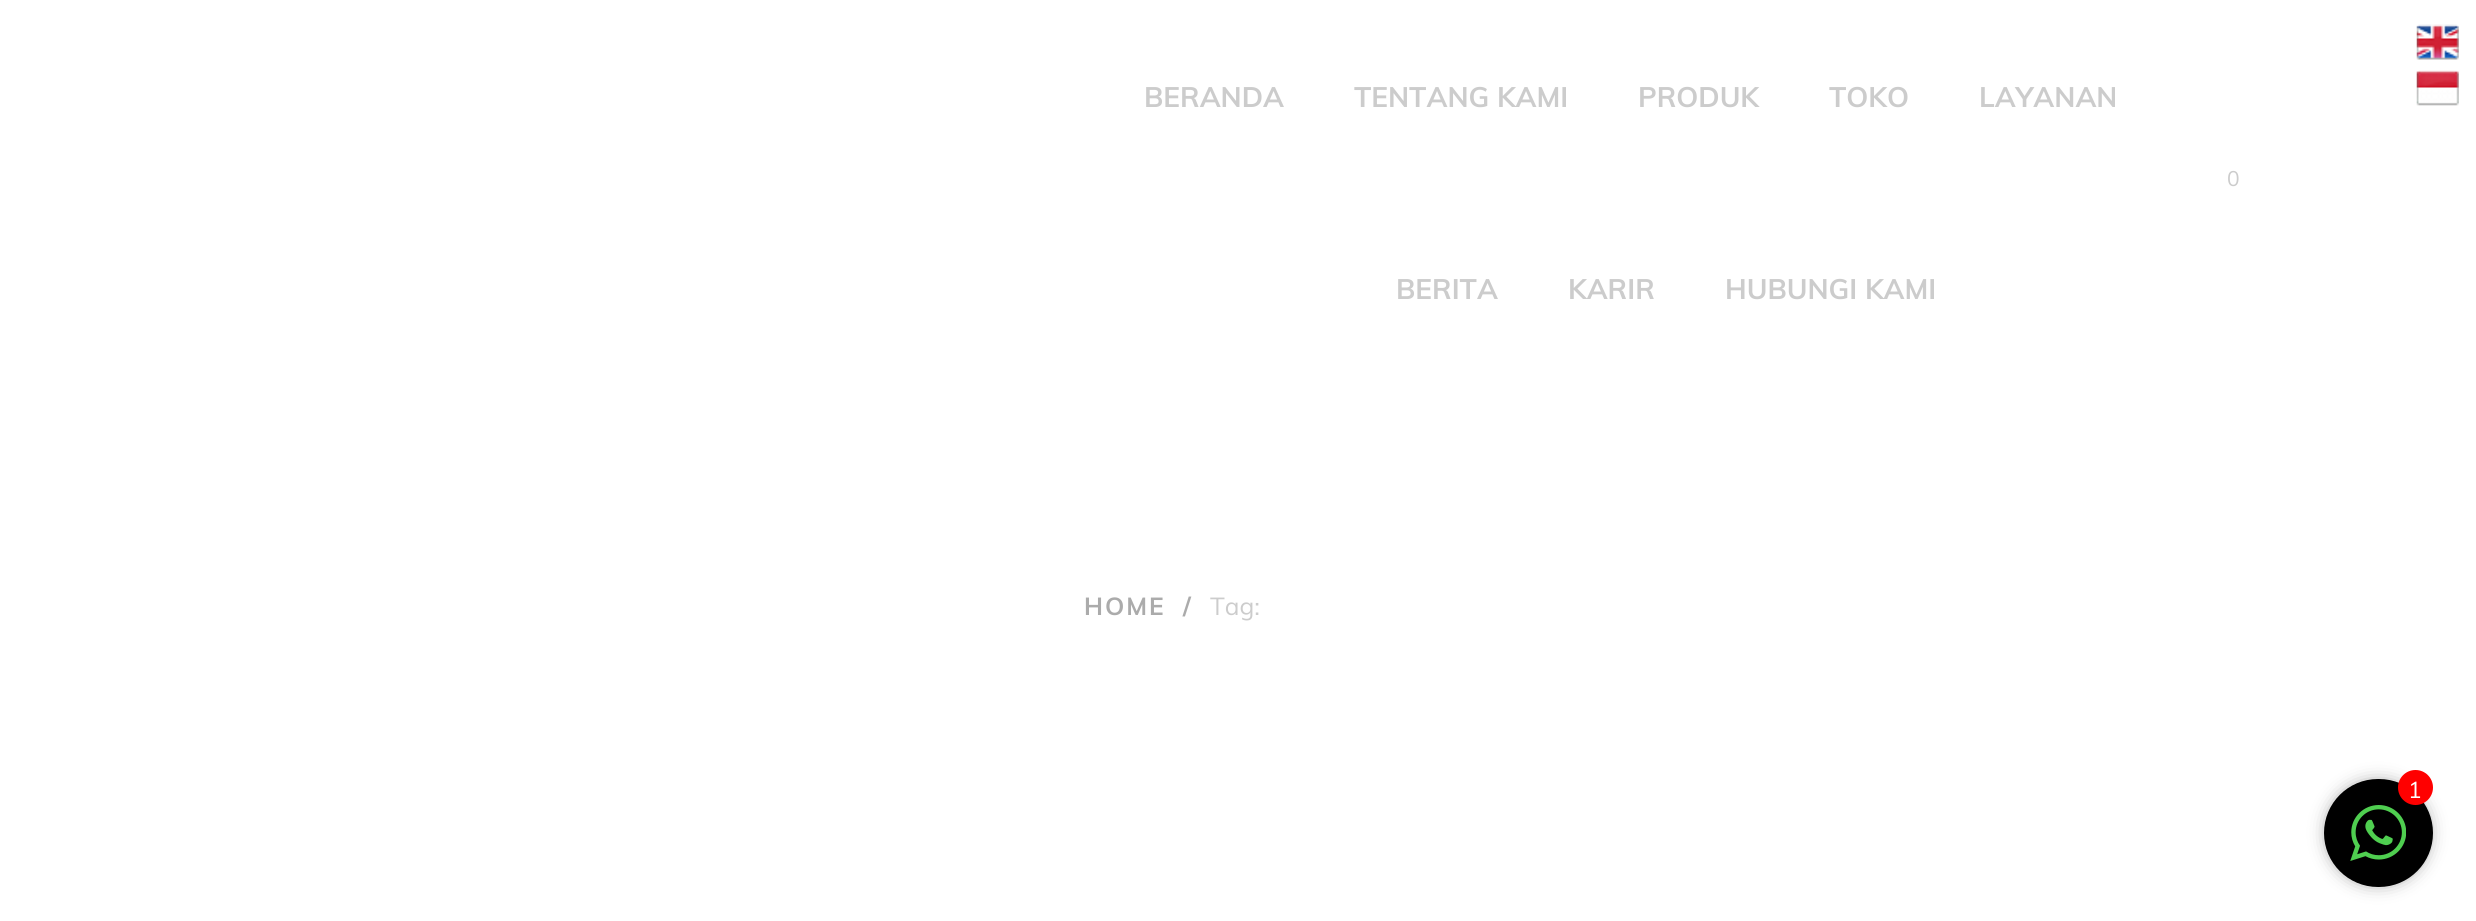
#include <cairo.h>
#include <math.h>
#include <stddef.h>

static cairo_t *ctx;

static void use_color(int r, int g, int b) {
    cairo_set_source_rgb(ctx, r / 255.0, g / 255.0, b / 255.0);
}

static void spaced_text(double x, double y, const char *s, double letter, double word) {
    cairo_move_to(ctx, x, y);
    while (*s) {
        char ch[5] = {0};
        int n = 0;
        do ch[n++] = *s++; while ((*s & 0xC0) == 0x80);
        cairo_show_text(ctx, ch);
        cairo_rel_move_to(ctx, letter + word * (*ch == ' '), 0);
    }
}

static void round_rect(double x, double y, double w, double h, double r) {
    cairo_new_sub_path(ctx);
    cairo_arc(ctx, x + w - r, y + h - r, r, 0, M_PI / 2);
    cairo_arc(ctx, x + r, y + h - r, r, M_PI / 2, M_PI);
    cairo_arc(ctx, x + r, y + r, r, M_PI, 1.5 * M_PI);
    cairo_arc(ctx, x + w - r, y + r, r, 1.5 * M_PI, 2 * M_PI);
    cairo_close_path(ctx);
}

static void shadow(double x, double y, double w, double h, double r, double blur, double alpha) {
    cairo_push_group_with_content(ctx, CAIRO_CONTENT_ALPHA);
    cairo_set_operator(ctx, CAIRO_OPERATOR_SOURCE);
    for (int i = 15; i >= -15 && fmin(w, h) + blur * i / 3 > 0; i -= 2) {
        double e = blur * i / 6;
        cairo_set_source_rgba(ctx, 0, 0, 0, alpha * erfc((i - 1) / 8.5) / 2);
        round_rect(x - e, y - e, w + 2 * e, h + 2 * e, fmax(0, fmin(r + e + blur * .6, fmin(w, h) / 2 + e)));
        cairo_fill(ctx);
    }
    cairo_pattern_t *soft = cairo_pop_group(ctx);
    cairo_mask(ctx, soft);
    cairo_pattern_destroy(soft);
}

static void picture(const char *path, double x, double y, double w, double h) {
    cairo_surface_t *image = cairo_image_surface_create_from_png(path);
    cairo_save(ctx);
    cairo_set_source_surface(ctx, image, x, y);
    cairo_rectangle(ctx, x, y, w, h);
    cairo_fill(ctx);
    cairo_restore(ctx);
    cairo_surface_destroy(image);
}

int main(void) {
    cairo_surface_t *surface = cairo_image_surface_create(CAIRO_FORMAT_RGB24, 2476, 921);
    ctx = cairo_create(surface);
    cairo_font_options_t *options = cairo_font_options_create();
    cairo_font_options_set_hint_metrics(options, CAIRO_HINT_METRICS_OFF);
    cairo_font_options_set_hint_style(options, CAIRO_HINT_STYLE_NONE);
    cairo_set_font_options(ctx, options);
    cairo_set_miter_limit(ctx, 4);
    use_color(255, 255, 255);
    cairo_paint(ctx);
    picture("img1.png", 2416, 24, 43, 36);
    picture("img2.png", 2416, 70, 43, 36);
    cairo_select_font_face(ctx, "Muli", CAIRO_FONT_SLANT_NORMAL, CAIRO_FONT_WEIGHT_BOLD);
    cairo_set_font_size(ctx, 28);
    use_color(204, 204, 204);
    cairo_move_to(ctx, 1144, 107);
    cairo_show_text(ctx, "BERANDA");
    cairo_move_to(ctx, 1354, 107);
    cairo_show_text(ctx, "TENTANG KAMI");
    cairo_move_to(ctx, 1638, 107);
    cairo_show_text(ctx, "PRODUK");
    cairo_move_to(ctx, 1829, 107);
    cairo_show_text(ctx, "TOKO");
    cairo_move_to(ctx, 1979, 107);
    cairo_show_text(ctx, "LAYANAN");
    cairo_move_to(ctx, 1396, 299);
    cairo_show_text(ctx, "BERITA");
    cairo_move_to(ctx, 1568, 299);
    cairo_show_text(ctx, "KARIR");
    cairo_move_to(ctx, 1725, 299);
    cairo_show_text(ctx, "HUBUNGI KAMI");
    cairo_select_font_face(ctx, "Muli", CAIRO_FONT_SLANT_NORMAL, CAIRO_FONT_WEIGHT_NORMAL);
    cairo_set_font_size(ctx, 21);
    cairo_move_to(ctx, 2227, 186);
    cairo_show_text(ctx, "0");
    cairo_select_font_face(ctx, "Muli", CAIRO_FONT_SLANT_NORMAL, CAIRO_FONT_WEIGHT_BOLD);
    cairo_set_font_size(ctx, 24.5);
    use_color(171, 171, 171);
    spaced_text(1084, 615, "HOME", 2, 0);
    spaced_text(1183, 615, "/", 2, 0);
    cairo_select_font_face(ctx, "Muli", CAIRO_FONT_SLANT_NORMAL, CAIRO_FONT_WEIGHT_NORMAL);
    use_color(204, 204, 204);
    cairo_move_to(ctx, 1210, 615);
    cairo_show_text(ctx, "Tag:");
    use_color(126, 126, 126);
    shadow(2329, 784, 98, 98, 49, 9, 1);
    use_color(0, 0, 0);
    round_rect(2324, 779, 109, 108, 54);
    cairo_fill(ctx);
    use_color(255, 0, 0);
    cairo_arc(ctx, 2415.5, 787.5, 17.5, 0, 2 * M_PI);
    cairo_fill(ctx);
    cairo_set_font_size(ctx, 23);
    use_color(255, 255, 255);
    cairo_move_to(ctx, 2408, 798);
    cairo_show_text(ctx, "1");
    picture("img3.png", 2350, 805, 56, 56);
    cairo_surface_write_to_png(surface, "result.png");
    cairo_font_options_destroy(options);
    cairo_destroy(ctx);
    cairo_surface_destroy(surface);
    return 0;
}
